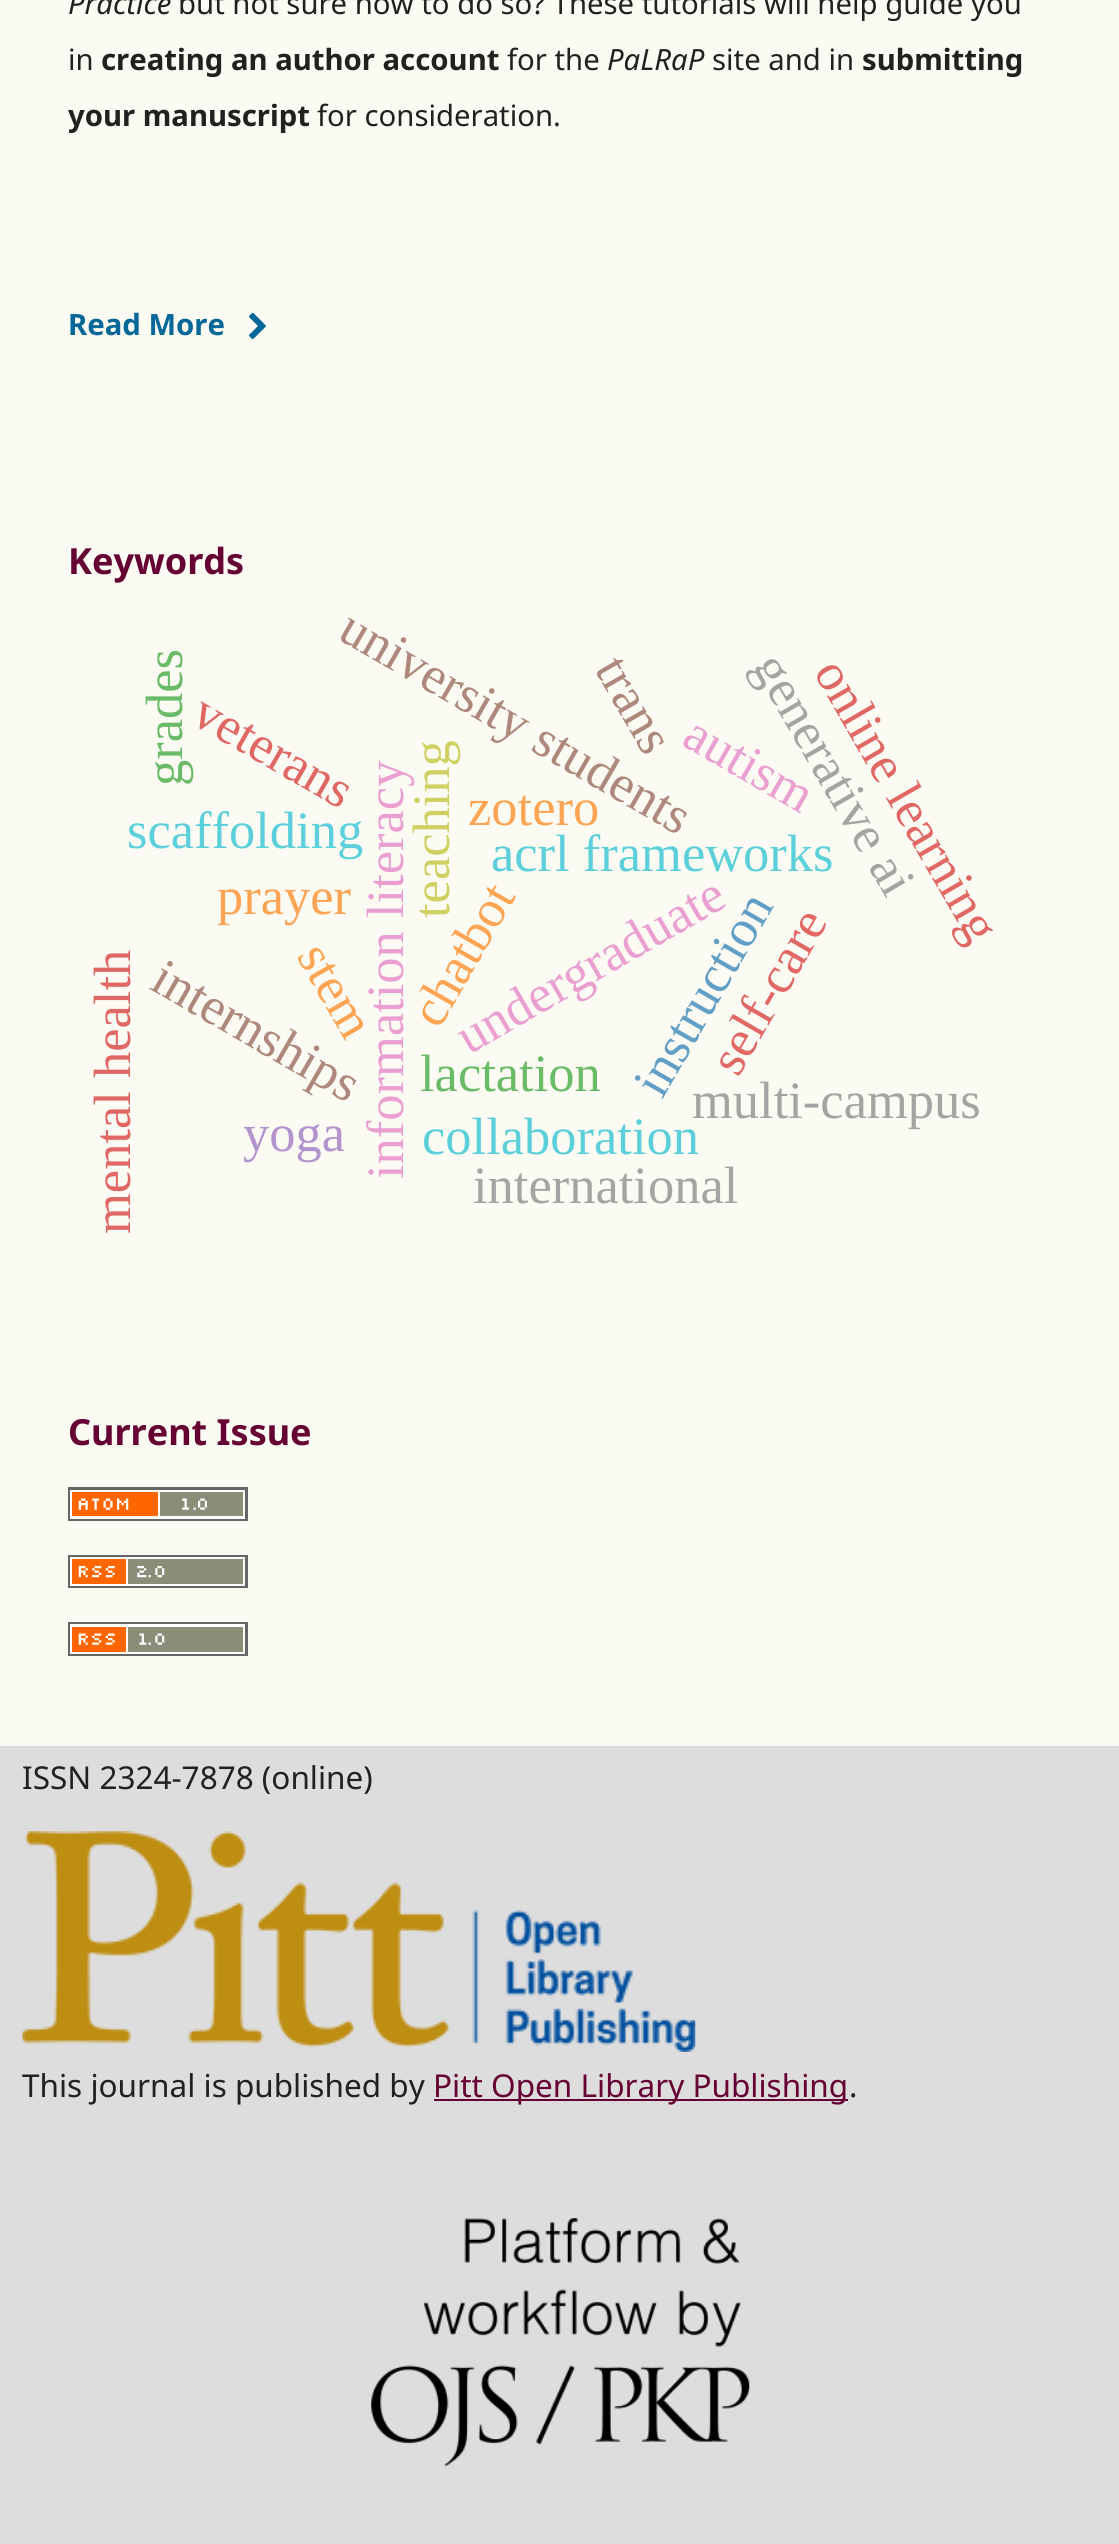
#include <cairo.h>
#include <math.h>
#include <stddef.h>

static cairo_t *ctx;

static void use_color(int r, int g, int b) {
    cairo_set_source_rgb(ctx, r / 255.0, g / 255.0, b / 255.0);
}

static void picture(const char *path, double x, double y, double w, double h) {
    cairo_surface_t *image = cairo_image_surface_create_from_png(path);
    cairo_save(ctx);
    cairo_set_source_surface(ctx, image, x, y);
    cairo_rectangle(ctx, x, y, w, h);
    cairo_fill(ctx);
    cairo_restore(ctx);
    cairo_surface_destroy(image);
}

int main(void) {
    cairo_surface_t *surface = cairo_image_surface_create(CAIRO_FORMAT_RGB24, 1119, 2544);
    ctx = cairo_create(surface);
    cairo_font_options_t *options = cairo_font_options_create();
    cairo_font_options_set_hint_metrics(options, CAIRO_HINT_METRICS_OFF);
    cairo_font_options_set_hint_style(options, CAIRO_HINT_STYLE_NONE);
    cairo_set_font_options(ctx, options);
    cairo_set_miter_limit(ctx, 4);
    use_color(221, 221, 221);
    cairo_paint(ctx);
    use_color(252, 251, 243);
    cairo_rectangle(ctx, 0, 0, 1119, 1746);
    cairo_fill(ctx);
    cairo_select_font_face(ctx, "Noto Sans", CAIRO_FONT_SLANT_ITALIC, CAIRO_FONT_WEIGHT_NORMAL);
    cairo_set_font_size(ctx, 29.3);
    use_color(33, 33, 32);
    cairo_move_to(ctx, 68, 14);
    cairo_show_text(ctx, "Practice");
    cairo_select_font_face(ctx, "Noto Sans", CAIRO_FONT_SLANT_NORMAL, CAIRO_FONT_WEIGHT_NORMAL);
    cairo_move_to(ctx, 178, 14);
    cairo_show_text(ctx, "but not sure how to do so? These tutorials will help guide you");
    cairo_move_to(ctx, 68, 70);
    cairo_show_text(ctx, "in");
    cairo_select_font_face(ctx, "Noto Sans", CAIRO_FONT_SLANT_NORMAL, CAIRO_FONT_WEIGHT_BOLD);
    cairo_move_to(ctx, 101, 70);
    cairo_show_text(ctx, "creating an author account");
    cairo_select_font_face(ctx, "Noto Sans", CAIRO_FONT_SLANT_NORMAL, CAIRO_FONT_WEIGHT_NORMAL);
    cairo_move_to(ctx, 507, 70);
    cairo_show_text(ctx, "for the");
    cairo_select_font_face(ctx, "Noto Sans", CAIRO_FONT_SLANT_ITALIC, CAIRO_FONT_WEIGHT_NORMAL);
    cairo_move_to(ctx, 607, 70);
    cairo_show_text(ctx, "PaLRaP");
    cairo_select_font_face(ctx, "Noto Sans", CAIRO_FONT_SLANT_NORMAL, CAIRO_FONT_WEIGHT_NORMAL);
    cairo_move_to(ctx, 712, 70);
    cairo_show_text(ctx, "site and in");
    cairo_select_font_face(ctx, "Noto Sans", CAIRO_FONT_SLANT_NORMAL, CAIRO_FONT_WEIGHT_BOLD);
    cairo_move_to(ctx, 862, 70);
    cairo_show_text(ctx, "submitting");
    cairo_move_to(ctx, 68, 126);
    cairo_show_text(ctx, "your manuscript");
    cairo_select_font_face(ctx, "Noto Sans", CAIRO_FONT_SLANT_NORMAL, CAIRO_FONT_WEIGHT_NORMAL);
    cairo_move_to(ctx, 317, 126);
    cairo_show_text(ctx, "for consideration.");
    cairo_select_font_face(ctx, "Noto Sans", CAIRO_FONT_SLANT_NORMAL, CAIRO_FONT_WEIGHT_BOLD);
    use_color(0, 103, 152);
    cairo_move_to(ctx, 68, 335);
    cairo_show_text(ctx, "Read More");
    picture("img1.png", 249, 312, 17, 28);
    cairo_set_font_size(ctx, 36);
    use_color(102, 0, 51);
    cairo_move_to(ctx, 68, 574);
    cairo_show_text(ctx, "Keywords");
    cairo_select_font_face(ctx, "Liberation Serif", CAIRO_FONT_SLANT_NORMAL, CAIRO_FONT_WEIGHT_NORMAL);
    cairo_set_font_size(ctx, 52.5);
    use_color(106, 187, 104);
    cairo_save(ctx);
    cairo_translate(ctx, 182, 786);
    cairo_rotate(ctx, -90 * M_PI / 180);
    cairo_move_to(ctx, 0, 0);
    cairo_show_text(ctx, "grades");
    cairo_restore(ctx);
    use_color(92, 208, 218);
    cairo_move_to(ctx, 127, 848);
    cairo_show_text(ctx, "scaffolding");
    use_color(174, 136, 125);
    cairo_save(ctx);
    cairo_translate(ctx, 336, 638);
    cairo_rotate(ctx, 30 * M_PI / 180);
    cairo_move_to(ctx, 0, 0);
    cairo_show_text(ctx, "university students");
    cairo_restore(ctx);
    cairo_save(ctx);
    cairo_translate(ctx, 594, 669);
    cairo_rotate(ctx, 60 * M_PI / 180);
    cairo_move_to(ctx, 0, 0);
    cairo_show_text(ctx, "trans");
    cairo_restore(ctx);
    use_color(92, 208, 218);
    cairo_move_to(ctx, 491, 871);
    cairo_show_text(ctx, "acrl frameworks");
    use_color(165, 164, 162);
    cairo_save(ctx);
    cairo_translate(ctx, 752, 666);
    cairo_rotate(ctx, 60 * M_PI / 180);
    cairo_move_to(ctx, 0, 0);
    cairo_show_text(ctx, "generative ai");
    cairo_restore(ctx);
    use_color(225, 103, 101);
    cairo_save(ctx);
    cairo_translate(ctx, 189, 722);
    cairo_rotate(ctx, 30 * M_PI / 180);
    cairo_move_to(ctx, 0, 0);
    cairo_show_text(ctx, "veterans");
    cairo_restore(ctx);
    use_color(235, 159, 209);
    cairo_save(ctx);
    cairo_translate(ctx, 403, 1179);
    cairo_rotate(ctx, -90 * M_PI / 180);
    cairo_move_to(ctx, 0, 0);
    cairo_show_text(ctx, "information literacy");
    cairo_restore(ctx);
    use_color(207, 208, 97);
    cairo_save(ctx);
    cairo_translate(ctx, 449, 918);
    cairo_rotate(ctx, -90 * M_PI / 180);
    cairo_move_to(ctx, 0, 0);
    cairo_show_text(ctx, "teaching");
    cairo_restore(ctx);
    use_color(254, 164, 83);
    cairo_move_to(ctx, 468, 825);
    cairo_show_text(ctx, "zotero");
    use_color(235, 159, 209);
    cairo_save(ctx);
    cairo_translate(ctx, 680, 744);
    cairo_rotate(ctx, 30 * M_PI / 180);
    cairo_move_to(ctx, 0, 0);
    cairo_show_text(ctx, "autism");
    cairo_restore(ctx);
    use_color(225, 103, 101);
    cairo_save(ctx);
    cairo_translate(ctx, 813, 672);
    cairo_rotate(ctx, 60 * M_PI / 180);
    cairo_move_to(ctx, 0, 0);
    cairo_show_text(ctx, "online learning");
    cairo_restore(ctx);
    use_color(254, 164, 83);
    cairo_save(ctx);
    cairo_translate(ctx, 439, 1030);
    cairo_rotate(ctx, -60 * M_PI / 180);
    cairo_move_to(ctx, 0, 0);
    cairo_show_text(ctx, "chatbot");
    cairo_restore(ctx);
    cairo_move_to(ctx, 217, 914);
    cairo_show_text(ctx, "prayer");
    use_color(235, 159, 209);
    cairo_save(ctx);
    cairo_translate(ctx, 469, 1055);
    cairo_rotate(ctx, -30 * M_PI / 180);
    cairo_move_to(ctx, 0, 0);
    cairo_show_text(ctx, "undergraduate");
    cairo_restore(ctx);
    use_color(97, 159, 199);
    cairo_save(ctx);
    cairo_translate(ctx, 662, 1100);
    cairo_rotate(ctx, -60 * M_PI / 180);
    cairo_move_to(ctx, 0, 0);
    cairo_show_text(ctx, "instruction");
    cairo_restore(ctx);
    use_color(225, 103, 101);
    cairo_save(ctx);
    cairo_translate(ctx, 130, 1234);
    cairo_rotate(ctx, -90 * M_PI / 180);
    cairo_move_to(ctx, 0, 0);
    cairo_show_text(ctx, "mental health");
    cairo_restore(ctx);
    use_color(174, 136, 125);
    cairo_save(ctx);
    cairo_translate(ctx, 148, 988);
    cairo_rotate(ctx, 30 * M_PI / 180);
    cairo_move_to(ctx, 0, 0);
    cairo_show_text(ctx, "internships");
    cairo_restore(ctx);
    use_color(254, 164, 83);
    cairo_save(ctx);
    cairo_translate(ctx, 296, 956);
    cairo_rotate(ctx, 60 * M_PI / 180);
    cairo_move_to(ctx, 0, 0);
    cairo_show_text(ctx, "stem");
    cairo_restore(ctx);
    use_color(225, 103, 101);
    cairo_save(ctx);
    cairo_translate(ctx, 738, 1078);
    cairo_rotate(ctx, -60 * M_PI / 180);
    cairo_move_to(ctx, 0, 0);
    cairo_show_text(ctx, "self-care");
    cairo_restore(ctx);
    use_color(106, 187, 104);
    cairo_move_to(ctx, 420, 1091);
    cairo_show_text(ctx, "lactation");
    use_color(165, 164, 162);
    cairo_move_to(ctx, 692, 1118);
    cairo_show_text(ctx, "multi-campus");
    use_color(179, 147, 205);
    cairo_move_to(ctx, 243, 1151);
    cairo_show_text(ctx, "yoga");
    use_color(92, 208, 218);
    cairo_move_to(ctx, 422, 1154);
    cairo_show_text(ctx, "collaboration");
    use_color(165, 164, 162);
    cairo_move_to(ctx, 473, 1203);
    cairo_show_text(ctx, "international");
    cairo_select_font_face(ctx, "Noto Sans", CAIRO_FONT_SLANT_NORMAL, CAIRO_FONT_WEIGHT_BOLD);
    cairo_set_font_size(ctx, 36);
    use_color(102, 0, 51);
    cairo_move_to(ctx, 68, 1445);
    cairo_show_text(ctx, "Current Issue");
    picture("img2.png", 68, 1487, 180, 34);
    picture("img3.png", 68, 1555, 180, 33);
    picture("img4.png", 68, 1622, 180, 34);
    cairo_select_font_face(ctx, "Noto Sans", CAIRO_FONT_SLANT_NORMAL, CAIRO_FONT_WEIGHT_NORMAL);
    cairo_set_font_size(ctx, 31.5);
    use_color(33, 33, 32);
    cairo_move_to(ctx, 22, 1789);
    cairo_show_text(ctx, "ISSN 2324-7878 (online)");
    picture("img5.png", 22, 1831, 674, 221);
    cairo_move_to(ctx, 22, 2097);
    cairo_show_text(ctx, "This journal is published by");
    use_color(102, 0, 51);
    cairo_rectangle(ctx, 434, 2099, 414, 2);
    cairo_fill(ctx);
    cairo_move_to(ctx, 433, 2097);
    cairo_show_text(ctx, "Pitt Open Library Publishing");
    use_color(33, 33, 32);
    cairo_move_to(ctx, 849, 2097);
    cairo_show_text(ctx, ".");
    picture("img6.png", 371, 2218, 379, 248);
    cairo_surface_write_to_png(surface, "result.png");
    cairo_font_options_destroy(options);
    cairo_destroy(ctx);
    cairo_surface_destroy(surface);
    return 0;
}
